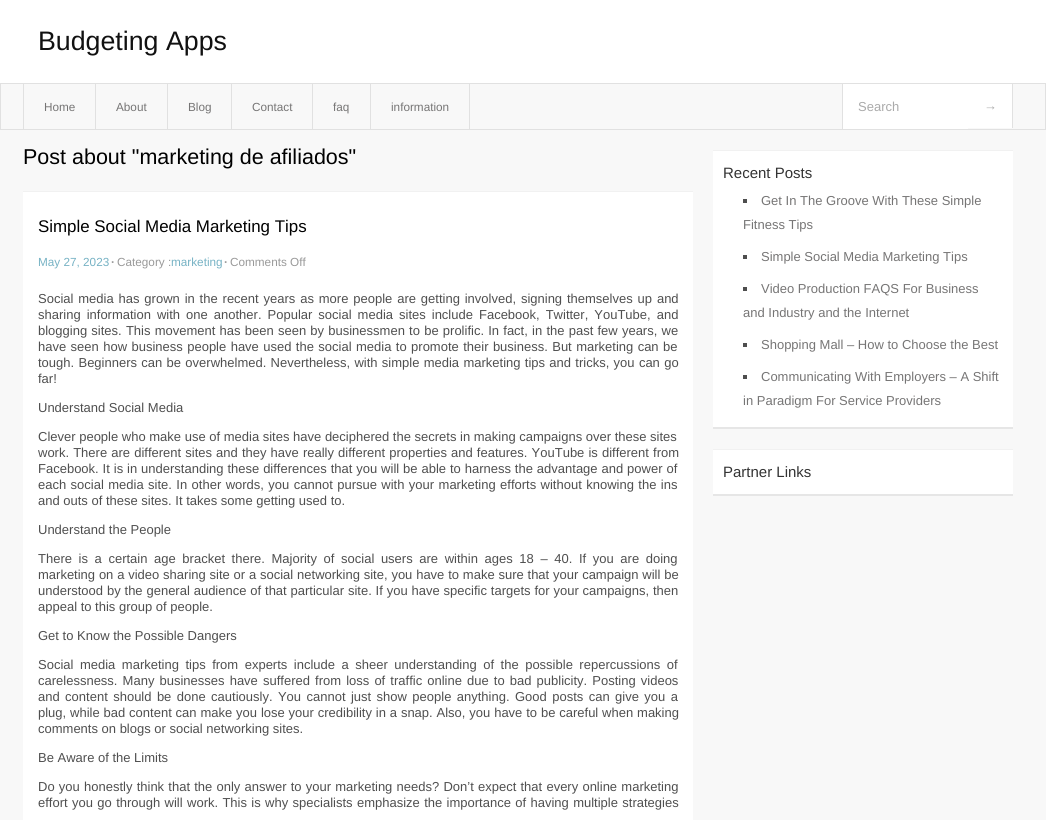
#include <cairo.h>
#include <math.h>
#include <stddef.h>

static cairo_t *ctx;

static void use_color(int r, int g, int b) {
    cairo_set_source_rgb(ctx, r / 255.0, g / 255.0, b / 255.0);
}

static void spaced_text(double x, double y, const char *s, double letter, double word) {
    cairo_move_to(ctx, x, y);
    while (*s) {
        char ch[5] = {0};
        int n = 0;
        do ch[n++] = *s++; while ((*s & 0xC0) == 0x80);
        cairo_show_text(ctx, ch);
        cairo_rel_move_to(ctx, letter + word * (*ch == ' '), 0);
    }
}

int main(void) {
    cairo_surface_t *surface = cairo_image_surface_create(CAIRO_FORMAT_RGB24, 1046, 820);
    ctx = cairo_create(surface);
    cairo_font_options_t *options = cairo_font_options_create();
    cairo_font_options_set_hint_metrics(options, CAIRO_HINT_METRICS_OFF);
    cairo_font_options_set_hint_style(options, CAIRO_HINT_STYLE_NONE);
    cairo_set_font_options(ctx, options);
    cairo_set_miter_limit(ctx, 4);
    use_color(248, 248, 248);
    cairo_paint(ctx);
    use_color(255, 255, 255);
    cairo_rectangle(ctx, 0, 0, 1046, 83);
    cairo_fill(ctx);
    cairo_select_font_face(ctx, "Liberation Sans", CAIRO_FONT_SLANT_NORMAL, CAIRO_FONT_WEIGHT_NORMAL);
    cairo_set_font_size(ctx, 26.75);
    use_color(17, 17, 17);
    cairo_move_to(ctx, 38, 50);
    cairo_show_text(ctx, "Budgeting Apps");
    cairo_rectangle(ctx, 0.5, 83.5, 1045, 46);
    use_color(225, 225, 225);
    cairo_set_line_width(ctx, 1);
    cairo_stroke(ctx);
    cairo_rectangle(ctx, 23, 84, 1, 46);
    cairo_fill(ctx);
    cairo_rectangle(ctx, 95, 84, 1, 46);
    cairo_fill(ctx);
    cairo_set_font_size(ctx, 11.75);
    use_color(118, 117, 117);
    cairo_move_to(ctx, 44, 111);
    cairo_show_text(ctx, "Home");
    use_color(225, 225, 225);
    cairo_rectangle(ctx, 167, 84, 1, 46);
    cairo_fill(ctx);
    use_color(118, 117, 117);
    cairo_move_to(ctx, 116, 111);
    cairo_show_text(ctx, "About");
    use_color(225, 225, 225);
    cairo_rectangle(ctx, 231, 84, 1, 46);
    cairo_fill(ctx);
    use_color(118, 117, 117);
    cairo_move_to(ctx, 188, 111);
    cairo_show_text(ctx, "Blog");
    use_color(225, 225, 225);
    cairo_rectangle(ctx, 312, 84, 1, 46);
    cairo_fill(ctx);
    use_color(118, 117, 117);
    cairo_move_to(ctx, 252, 111);
    cairo_show_text(ctx, "Contact");
    use_color(225, 225, 225);
    cairo_rectangle(ctx, 370, 84, 1, 46);
    cairo_fill(ctx);
    use_color(118, 117, 117);
    cairo_move_to(ctx, 333, 111);
    cairo_show_text(ctx, "faq");
    use_color(225, 225, 225);
    cairo_rectangle(ctx, 469, 84, 1, 46);
    cairo_fill(ctx);
    use_color(118, 117, 117);
    cairo_move_to(ctx, 391, 111);
    cairo_show_text(ctx, "information");
    use_color(255, 255, 255);
    cairo_rectangle(ctx, 843, 84, 125, 45);
    cairo_fill(ctx);
    use_color(225, 225, 225);
    cairo_rectangle(ctx, 842, 84, 1, 45);
    cairo_fill(ctx);
    cairo_set_font_size(ctx, 13);
    use_color(170, 170, 170);
    cairo_move_to(ctx, 858, 111);
    cairo_show_text(ctx, "Search");
    use_color(255, 255, 255);
    cairo_rectangle(ctx, 968, 84, 44, 44);
    cairo_fill(ctx);
    use_color(225, 225, 225);
    cairo_rectangle(ctx, 1012, 84, 1, 44);
    cairo_fill(ctx);
    use_color(170, 170, 170);
    cairo_move_to(ctx, 984, 110);
    cairo_show_text(ctx, "→");
    cairo_set_font_size(ctx, 21.5);
    use_color(0, 0, 0);
    cairo_move_to(ctx, 23, 164);
    cairo_show_text(ctx, "Post about \"marketing de afiliados\"");
    use_color(255, 255, 255);
    cairo_rectangle(ctx, 23, 192, 670, 628);
    cairo_fill(ctx);
    use_color(241, 241, 241);
    cairo_rectangle(ctx, 23, 191, 670, 1);
    cairo_fill(ctx);
    cairo_set_font_size(ctx, 16.9);
    use_color(0, 0, 0);
    cairo_move_to(ctx, 38, 232);
    cairo_show_text(ctx, "Simple Social Media Marketing Tips");
    cairo_set_font_size(ctx, 11.75);
    use_color(118, 178, 196);
    cairo_move_to(ctx, 38, 266);
    cairo_show_text(ctx, "May 27, 2023");
    cairo_select_font_face(ctx, "Liberation Sans", CAIRO_FONT_SLANT_NORMAL, CAIRO_FONT_WEIGHT_BOLD);
    use_color(153, 153, 153);
    cairo_move_to(ctx, 111, 266);
    cairo_show_text(ctx, "·");
    cairo_select_font_face(ctx, "Liberation Sans", CAIRO_FONT_SLANT_NORMAL, CAIRO_FONT_WEIGHT_NORMAL);
    cairo_move_to(ctx, 117, 266);
    cairo_show_text(ctx, "Category :");
    use_color(118, 178, 196);
    cairo_move_to(ctx, 171, 266);
    cairo_show_text(ctx, "marketing");
    cairo_select_font_face(ctx, "Liberation Sans", CAIRO_FONT_SLANT_NORMAL, CAIRO_FONT_WEIGHT_BOLD);
    use_color(153, 153, 153);
    cairo_move_to(ctx, 224, 266);
    cairo_show_text(ctx, "·");
    cairo_select_font_face(ctx, "Liberation Sans", CAIRO_FONT_SLANT_NORMAL, CAIRO_FONT_WEIGHT_NORMAL);
    cairo_move_to(ctx, 230, 266);
    cairo_show_text(ctx, "Comments Off");
    cairo_set_font_size(ctx, 13);
    use_color(79, 79, 79);
    spaced_text(38, 303, "Social media has grown in the recent years as more people are getting involved, signing themselves up and", 0, 1.25);
    spaced_text(38, 319, "sharing information with one another. Popular social media sites include Facebook, Twitter, YouTube, and", 0, 2.4);
    spaced_text(38, 335, "blogging sites. This movement has been seen by businessmen to be prolific. In fact, in the past few years, we", 0, 0.6);
    spaced_text(38, 351, "have seen how business people have used the social media to promote their business. But marketing can be", 0, 0.8);
    spaced_text(38, 367, "tough. Beginners can be overwhelmed. Nevertheless, with simple media marketing tips and tricks, you can go", 0, 0.7);
    cairo_move_to(ctx, 38, 383);
    cairo_show_text(ctx, "far!");
    cairo_move_to(ctx, 38, 412);
    cairo_show_text(ctx, "Understand Social Media");
    cairo_move_to(ctx, 38, 441);
    cairo_show_text(ctx, "Clever people who make use of media sites have deciphered the secrets in making campaigns over these sites");
    spaced_text(38, 457, "work. There are different sites and they have really different properties and features. YouTube is different from", 0, 0.5);
    spaced_text(38, 473, "Facebook. It is in understanding these differences that you will be able to harness the advantage and power of", 0, 0.3);
    spaced_text(38, 489, "each social media site. In other words, you cannot pursue with your marketing efforts without knowing the ins", 0, 0.8);
    cairo_move_to(ctx, 38, 505);
    cairo_show_text(ctx, "and outs of these sites. It takes some getting used to.");
    cairo_move_to(ctx, 38, 534);
    cairo_show_text(ctx, "Understand the People");
    spaced_text(38, 563, "There is a certain age bracket there. Majority of social users are within ages 18 – 40. If you are doing", 0, 3);
    spaced_text(38, 579, "marketing on a video sharing site or a social networking site, you have to make sure that your campaign will be", 0, 0.2);
    spaced_text(38, 595, "understood by the general audience of that particular site. If you have specific targets for your campaigns, then", 0, 0.25);
    cairo_move_to(ctx, 38, 611);
    cairo_show_text(ctx, "appeal to this group of people.");
    cairo_move_to(ctx, 38, 640);
    cairo_show_text(ctx, "Get to Know the Possible Dangers");
    spaced_text(38, 669, "Social media marketing tips from experts include a sheer understanding of the possible repercussions of", 0, 2.9);
    spaced_text(38, 685, "carelessness. Many businesses have suffered from loss of traffic online due to bad publicity. Posting videos", 0, 1.5);
    spaced_text(38, 701, "and content should be done cautiously. You cannot just show people anything. Good posts can give you a", 0, 1.8);
    spaced_text(38, 717, "plug, while bad content can make you lose your credibility in a snap. Also, you have to be careful when making", 0, 0.25);
    cairo_move_to(ctx, 38, 733);
    cairo_show_text(ctx, "comments on blogs or social networking sites.");
    cairo_move_to(ctx, 38, 762);
    cairo_show_text(ctx, "Be Aware of the Limits");
    spaced_text(38, 791, "Do you honestly think that the only answer to your marketing needs? Don’t expect that every online marketing", 0, 0.6);
    spaced_text(38, 807, "effort you go through will work. This is why specialists emphasize the importance of having multiple strategies", 0, 0.75);
    use_color(255, 255, 255);
    cairo_rectangle(ctx, 713, 151, 300, 276);
    cairo_fill(ctx);
    use_color(241, 241, 241);
    cairo_rectangle(ctx, 713, 150, 300, 1);
    cairo_fill(ctx);
    use_color(230, 230, 230);
    cairo_rectangle(ctx, 713, 427, 300, 2);
    cairo_fill(ctx);
    cairo_set_font_size(ctx, 15);
    use_color(51, 51, 51);
    cairo_move_to(ctx, 723, 178);
    cairo_show_text(ctx, "Recent Posts");
    use_color(78, 78, 78);
    cairo_rectangle(ctx, 743, 199, 4, 4);
    cairo_fill(ctx);
    cairo_set_font_size(ctx, 13);
    use_color(118, 117, 117);
    cairo_move_to(ctx, 761, 205);
    cairo_show_text(ctx, "Get In The Groove With These Simple");
    cairo_move_to(ctx, 743, 229);
    cairo_show_text(ctx, "Fitness Tips");
    use_color(78, 78, 78);
    cairo_rectangle(ctx, 743, 255, 4, 4);
    cairo_fill(ctx);
    use_color(118, 117, 117);
    cairo_move_to(ctx, 761, 261);
    cairo_show_text(ctx, "Simple Social Media Marketing Tips");
    use_color(78, 78, 78);
    cairo_rectangle(ctx, 743, 287, 4, 4);
    cairo_fill(ctx);
    use_color(118, 117, 117);
    cairo_move_to(ctx, 761, 293);
    cairo_show_text(ctx, "Video Production FAQS For Business");
    cairo_move_to(ctx, 743, 317);
    cairo_show_text(ctx, "and Industry and the Internet");
    use_color(78, 78, 78);
    cairo_rectangle(ctx, 743, 343, 4, 4);
    cairo_fill(ctx);
    use_color(118, 117, 117);
    cairo_move_to(ctx, 761, 349);
    cairo_show_text(ctx, "Shopping Mall – How to Choose the Best");
    use_color(78, 78, 78);
    cairo_rectangle(ctx, 743, 375, 4, 4);
    cairo_fill(ctx);
    use_color(118, 117, 117);
    cairo_move_to(ctx, 761, 381);
    cairo_show_text(ctx, "Communicating With Employers – A Shift");
    cairo_move_to(ctx, 743, 405);
    cairo_show_text(ctx, "in Paradigm For Service Providers");
    use_color(255, 255, 255);
    cairo_rectangle(ctx, 713, 450, 300, 44);
    cairo_fill(ctx);
    use_color(241, 241, 241);
    cairo_rectangle(ctx, 713, 449, 300, 1);
    cairo_fill(ctx);
    use_color(230, 230, 230);
    cairo_rectangle(ctx, 713, 494, 300, 2);
    cairo_fill(ctx);
    cairo_set_font_size(ctx, 15);
    use_color(51, 51, 51);
    cairo_move_to(ctx, 723, 477);
    cairo_show_text(ctx, "Partner Links");
    cairo_surface_write_to_png(surface, "result.png");
    cairo_font_options_destroy(options);
    cairo_destroy(ctx);
    cairo_surface_destroy(surface);
    return 0;
}
